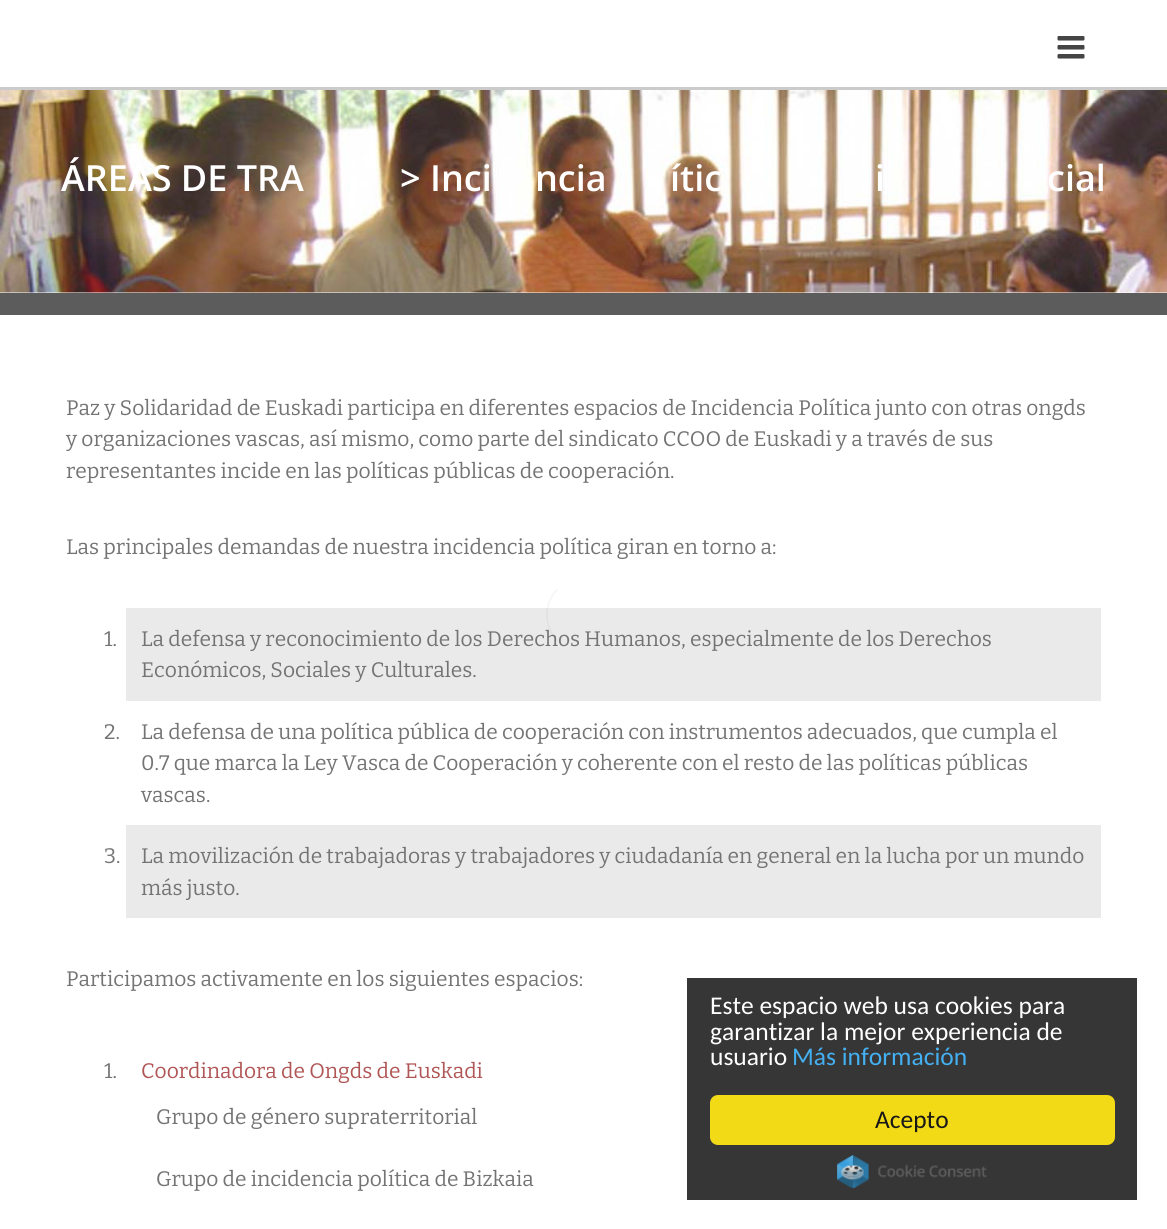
#include <cairo.h>
#include <math.h>
#include <stddef.h>

static cairo_t *ctx;

static void use_color(int r, int g, int b) {
    cairo_set_source_rgb(ctx, r / 255.0, g / 255.0, b / 255.0);
}

static void round_rect(double x, double y, double w, double h, double r) {
    cairo_new_sub_path(ctx);
    cairo_arc(ctx, x + w - r, y + h - r, r, 0, M_PI / 2);
    cairo_arc(ctx, x + r, y + h - r, r, M_PI / 2, M_PI);
    cairo_arc(ctx, x + r, y + r, r, M_PI, 1.5 * M_PI);
    cairo_arc(ctx, x + w - r, y + r, r, 1.5 * M_PI, 2 * M_PI);
    cairo_close_path(ctx);
}

static void picture(const char *path, double x, double y, double w, double h) {
    cairo_surface_t *image = cairo_image_surface_create_from_png(path);
    cairo_save(ctx);
    cairo_set_source_surface(ctx, image, x, y);
    cairo_rectangle(ctx, x, y, w, h);
    cairo_fill(ctx);
    cairo_restore(ctx);
    cairo_surface_destroy(image);
}

int main(void) {
    cairo_surface_t *surface = cairo_image_surface_create(CAIRO_FORMAT_RGB24, 1167, 1229);
    ctx = cairo_create(surface);
    cairo_font_options_t *options = cairo_font_options_create();
    cairo_font_options_set_hint_metrics(options, CAIRO_HINT_METRICS_OFF);
    cairo_font_options_set_hint_style(options, CAIRO_HINT_STYLE_NONE);
    cairo_set_font_options(ctx, options);
    cairo_set_miter_limit(ctx, 4);
    use_color(255, 255, 255);
    cairo_paint(ctx);
    use_color(203, 203, 203);
    cairo_rectangle(ctx, 0, 87, 1167, 3);
    cairo_fill(ctx);
    picture("img1.png", 1057, 36, 28, 23);
    picture("img2.png", 0, 90, 1167, 203);
    use_color(92, 92, 92);
    cairo_rectangle(ctx, 0, 293, 1167, 22);
    cairo_fill(ctx);
    cairo_select_font_face(ctx, "Open Sans SemiBold", CAIRO_FONT_SLANT_NORMAL, CAIRO_FONT_WEIGHT_NORMAL);
    cairo_set_font_size(ctx, 36);
    use_color(255, 255, 255);
    cairo_move_to(ctx, 61, 191);
    cairo_show_text(ctx, "ÁREAS DE TRA");
    cairo_move_to(ctx, 400, 191);
    cairo_show_text(ctx, "> Inci");
    cairo_move_to(ctx, 535, 191);
    cairo_show_text(ctx, "ncia");
    cairo_move_to(ctx, 670, 191);
    cairo_show_text(ctx, "ític");
    cairo_move_to(ctx, 875, 191);
    cairo_show_text(ctx, "i");
    cairo_move_to(ctx, 1047, 191);
    cairo_show_text(ctx, "cial");
    cairo_select_font_face(ctx, "Bitter Thin", CAIRO_FONT_SLANT_NORMAL, CAIRO_FONT_WEIGHT_NORMAL);
    cairo_set_font_size(ctx, 21);
    use_color(116, 116, 116);
    cairo_move_to(ctx, 66, 415);
    cairo_show_text(ctx, "Paz y Solidaridad de Euskadi participa en diferentes espacios de Incidencia Política junto con otras ongds");
    cairo_move_to(ctx, 66, 446);
    cairo_show_text(ctx, "y organizaciones vascas, así mismo, como parte del sindicato CCOO de Euskadi y a través de sus");
    cairo_move_to(ctx, 66, 478);
    cairo_show_text(ctx, "representantes incide en las políticas públicas de cooperación.");
    cairo_move_to(ctx, 66, 554);
    cairo_show_text(ctx, "Las principales demandas de nuestra incidencia política giran en torno a:");
    use_color(234, 234, 234);
    cairo_rectangle(ctx, 126, 608, 975, 93);
    cairo_fill(ctx);
    use_color(116, 116, 116);
    cairo_move_to(ctx, 104, 646);
    cairo_show_text(ctx, "1.");
    cairo_move_to(ctx, 141, 646);
    cairo_show_text(ctx, "La defensa y reconocimiento de los Derechos Humanos, especialmente de los Derechos");
    cairo_move_to(ctx, 141, 677);
    cairo_show_text(ctx, "Económicos, Sociales y Culturales.");
    cairo_move_to(ctx, 104, 739);
    cairo_show_text(ctx, "2.");
    cairo_move_to(ctx, 141, 739);
    cairo_show_text(ctx, "La defensa de una política pública de cooperación con instrumentos adecuados, que cumpla el");
    cairo_move_to(ctx, 141, 770);
    cairo_show_text(ctx, "0.7 que marca la Ley Vasca de Cooperación y coherente con el resto de las políticas públicas");
    cairo_move_to(ctx, 141, 802);
    cairo_show_text(ctx, "vascas.");
    use_color(234, 234, 234);
    cairo_rectangle(ctx, 126, 825, 975, 93);
    cairo_fill(ctx);
    use_color(116, 116, 116);
    cairo_move_to(ctx, 104, 863);
    cairo_show_text(ctx, "3.");
    cairo_move_to(ctx, 141, 863);
    cairo_show_text(ctx, "La movilización de trabajadoras y trabajadores y ciudadanía en general en la lucha por un mundo");
    cairo_move_to(ctx, 141, 895);
    cairo_show_text(ctx, "más justo.");
    cairo_move_to(ctx, 66, 986);
    cairo_show_text(ctx, "Participamos activamente en los siguientes espacios:");
    cairo_move_to(ctx, 104, 1078);
    cairo_show_text(ctx, "1.");
    use_color(177, 86, 86);
    cairo_move_to(ctx, 141, 1078);
    cairo_show_text(ctx, "Coordinadora de Ongds de Euskadi");
    use_color(116, 116, 116);
    cairo_move_to(ctx, 156, 1124);
    cairo_show_text(ctx, "Grupo de género supraterritorial");
    cairo_move_to(ctx, 156, 1186);
    cairo_show_text(ctx, "Grupo de incidencia política de Bizkaia");
    cairo_new_path(ctx);
    cairo_move_to(ctx, 557.5, 641);
    cairo_curve_to(ctx, 543.5, 627, 543.5, 603, 557.5, 589);
    cairo_set_source_rgba(ctx, 0, 0, 0, 0.04);
    cairo_set_line_width(ctx, 1.5);
    cairo_stroke(ctx);
    use_color(54, 54, 54);
    cairo_rectangle(ctx, 687, 978, 450, 222);
    cairo_fill(ctx);
    cairo_select_font_face(ctx, "Carlito", CAIRO_FONT_SLANT_NORMAL, CAIRO_FONT_WEIGHT_NORMAL);
    cairo_set_font_size(ctx, 25.5);
    use_color(255, 255, 255);
    cairo_move_to(ctx, 710, 1014);
    cairo_show_text(ctx, "Este espacio web usa cookies para");
    cairo_move_to(ctx, 710, 1040);
    cairo_show_text(ctx, "garantizar la mejor experiencia de");
    cairo_move_to(ctx, 710, 1065);
    cairo_show_text(ctx, "usuario");
    use_color(68, 176, 241);
    cairo_move_to(ctx, 792, 1065);
    cairo_show_text(ctx, "Más información");
    use_color(242, 218, 23);
    round_rect(710, 1095, 405, 50, 8);
    cairo_fill(ctx);
    use_color(23, 23, 23);
    cairo_move_to(ctx, 875, 1128);
    cairo_show_text(ctx, "Acepto");
    picture("img3.png", 837, 1155, 150, 33);
    cairo_surface_write_to_png(surface, "result.png");
    cairo_font_options_destroy(options);
    cairo_destroy(ctx);
    cairo_surface_destroy(surface);
    return 0;
}
